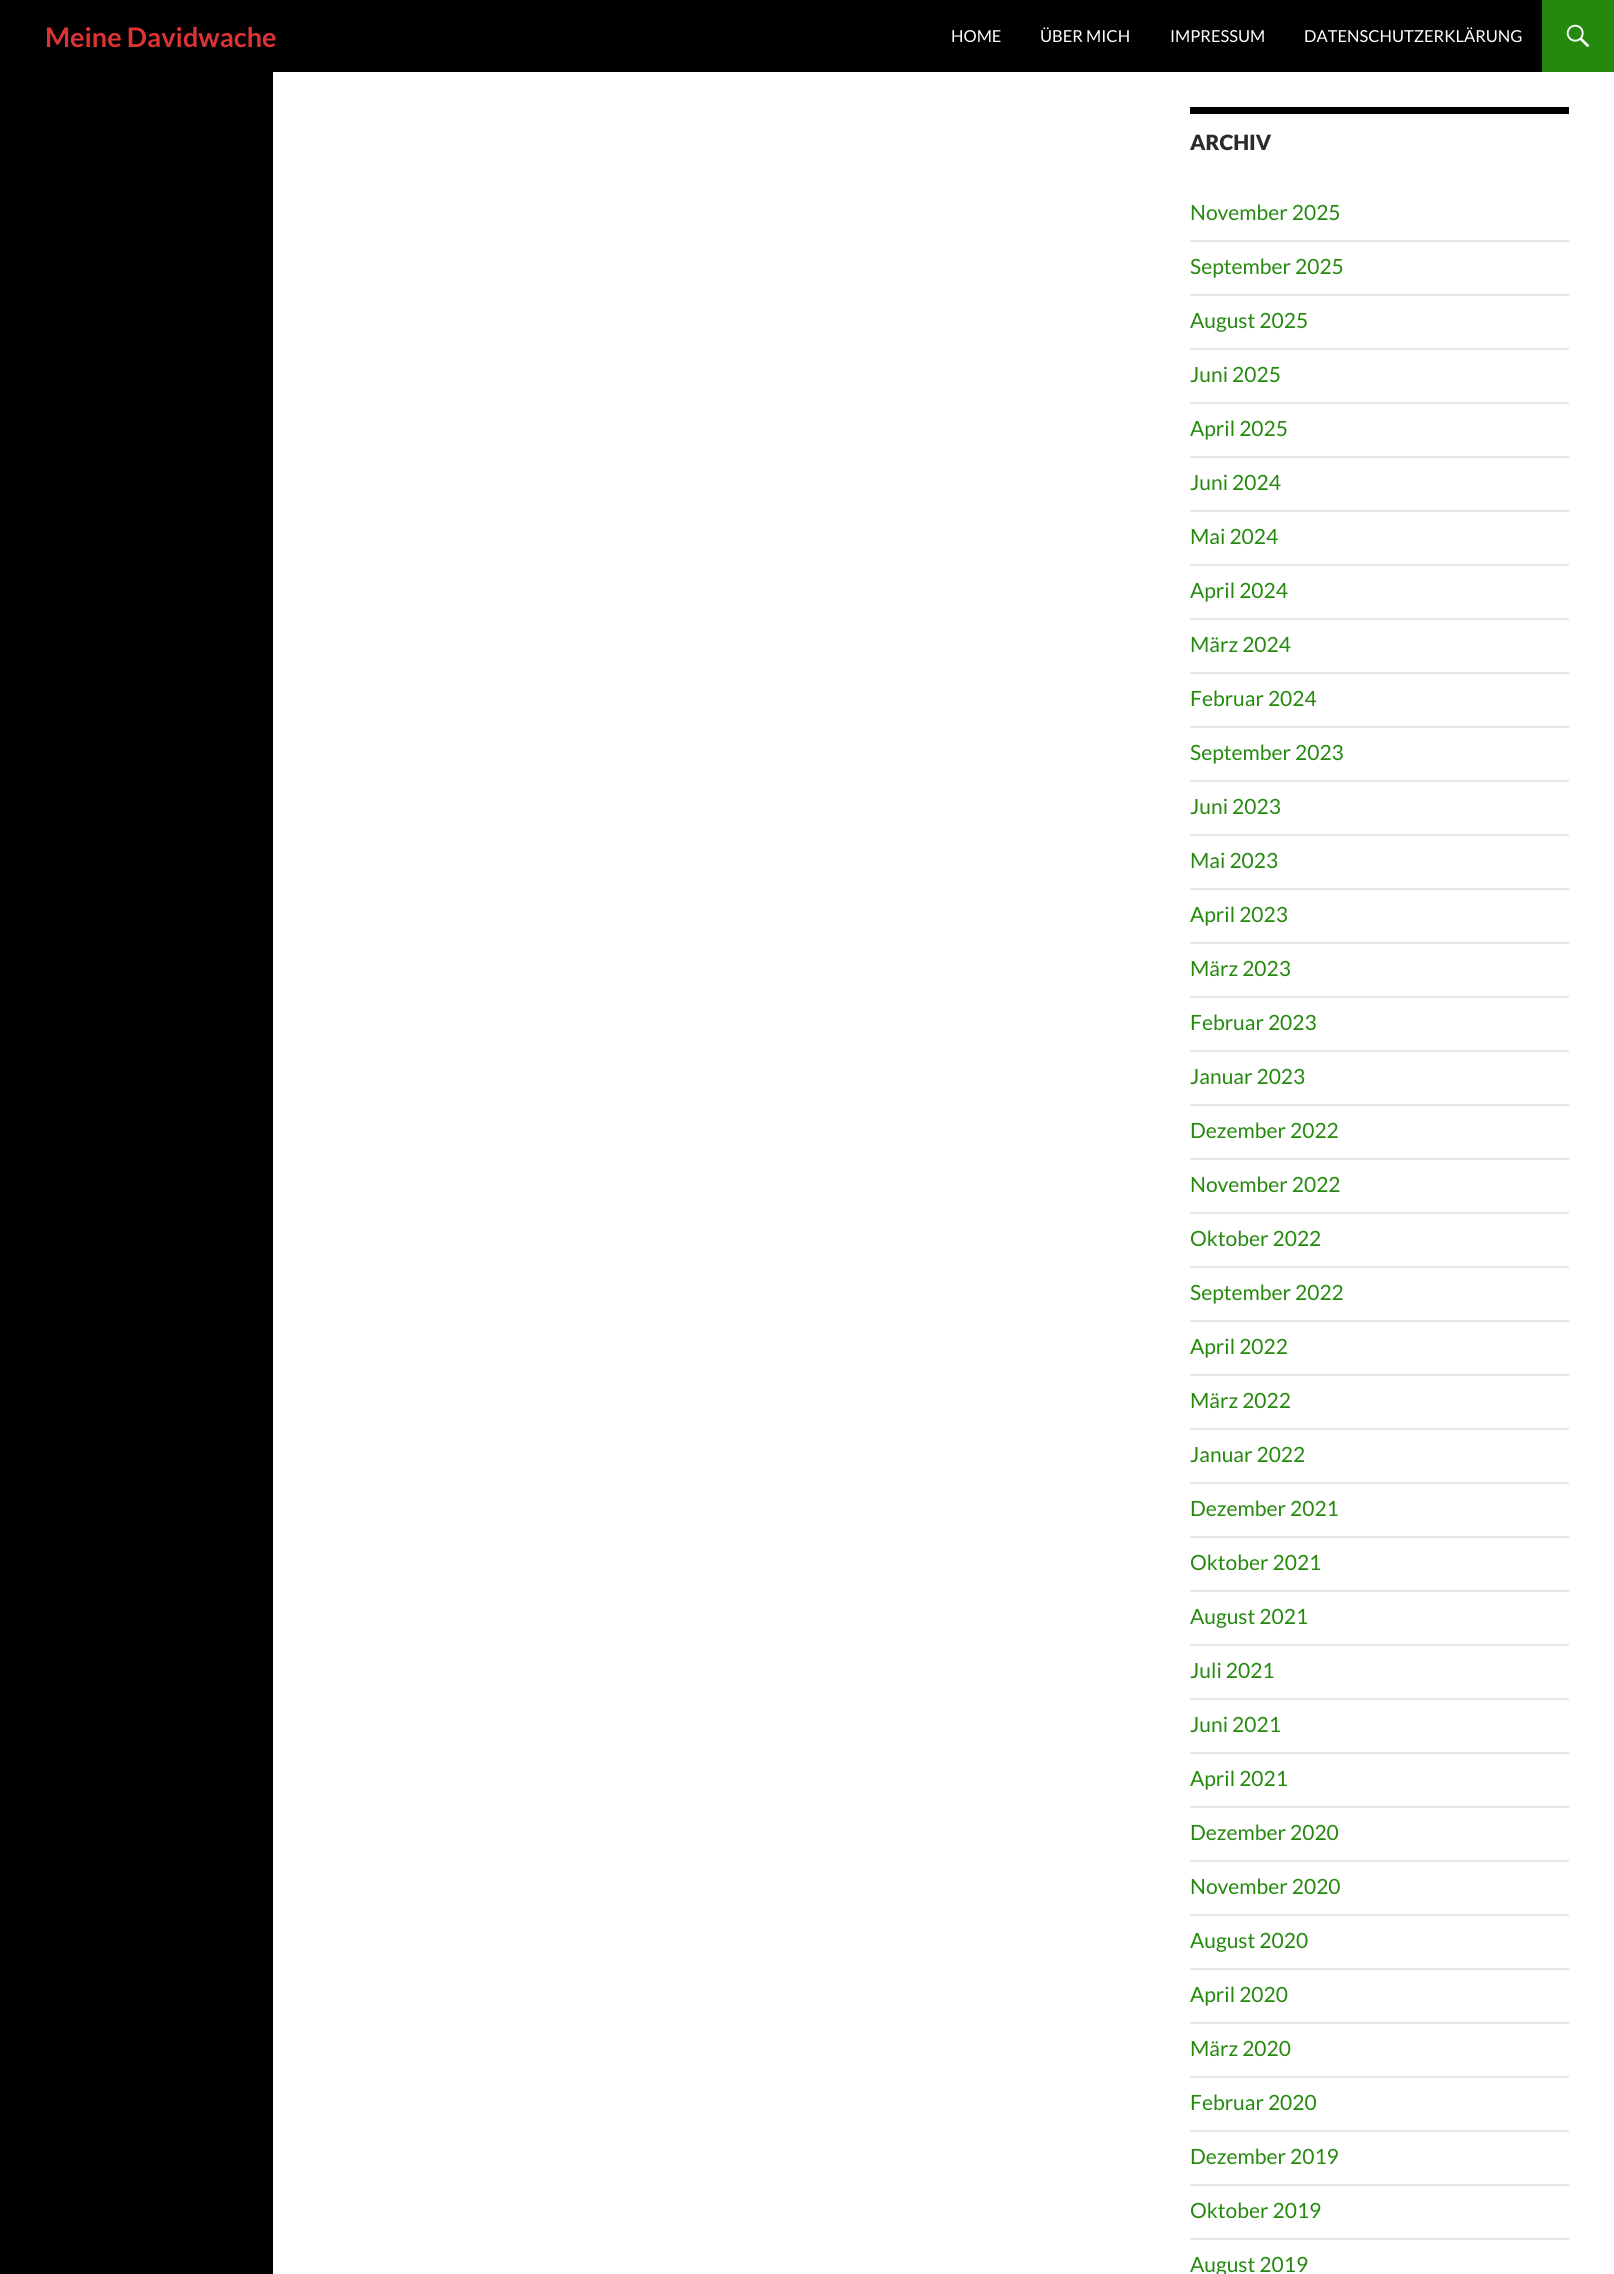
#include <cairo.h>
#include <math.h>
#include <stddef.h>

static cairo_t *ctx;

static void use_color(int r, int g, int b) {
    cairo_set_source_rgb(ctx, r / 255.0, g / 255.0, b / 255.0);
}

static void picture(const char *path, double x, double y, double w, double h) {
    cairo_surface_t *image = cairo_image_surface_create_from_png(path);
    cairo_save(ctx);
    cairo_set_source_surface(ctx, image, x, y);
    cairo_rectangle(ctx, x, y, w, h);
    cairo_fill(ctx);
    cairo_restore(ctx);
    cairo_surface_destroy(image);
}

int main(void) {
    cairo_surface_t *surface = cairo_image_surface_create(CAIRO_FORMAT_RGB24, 1614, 2274);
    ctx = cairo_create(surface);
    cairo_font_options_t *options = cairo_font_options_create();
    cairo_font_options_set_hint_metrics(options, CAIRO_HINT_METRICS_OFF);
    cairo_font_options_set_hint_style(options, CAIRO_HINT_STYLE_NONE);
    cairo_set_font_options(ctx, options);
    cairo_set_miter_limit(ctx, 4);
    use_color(255, 255, 255);
    cairo_paint(ctx);
    use_color(0, 0, 0);
    cairo_rectangle(ctx, 0, 0, 1542, 72);
    cairo_fill(ctx);
    cairo_select_font_face(ctx, "Lato", CAIRO_FONT_SLANT_NORMAL, CAIRO_FONT_WEIGHT_BOLD);
    cairo_set_font_size(ctx, 27);
    use_color(221, 51, 51);
    cairo_move_to(ctx, 45, 47);
    cairo_show_text(ctx, "Meine Davidwache");
    cairo_select_font_face(ctx, "Lato", CAIRO_FONT_SLANT_NORMAL, CAIRO_FONT_WEIGHT_NORMAL);
    cairo_set_font_size(ctx, 16.5);
    use_color(255, 255, 255);
    cairo_move_to(ctx, 951, 42);
    cairo_show_text(ctx, "HOME");
    cairo_move_to(ctx, 1040, 42);
    cairo_show_text(ctx, "ÜBER MICH");
    cairo_move_to(ctx, 1170, 42);
    cairo_show_text(ctx, "IMPRESSUM");
    cairo_move_to(ctx, 1304, 42);
    cairo_show_text(ctx, "DATENSCHUTZERKLÄRUNG");
    use_color(36, 137, 13);
    cairo_rectangle(ctx, 1542, 0, 72, 72);
    cairo_fill(ctx);
    picture("img1.png", 1566, 24, 24, 24);
    use_color(0, 0, 0);
    cairo_rectangle(ctx, 0, 72, 273, 2202);
    cairo_fill(ctx);
    cairo_rectangle(ctx, 1190, 107, 379, 7);
    cairo_fill(ctx);
    cairo_select_font_face(ctx, "Lato Black", CAIRO_FONT_SLANT_NORMAL, CAIRO_FONT_WEIGHT_NORMAL);
    cairo_set_font_size(ctx, 21);
    use_color(43, 43, 43);
    cairo_move_to(ctx, 1190, 150);
    cairo_show_text(ctx, "ARCHIV");
    cairo_select_font_face(ctx, "Lato", CAIRO_FONT_SLANT_NORMAL, CAIRO_FONT_WEIGHT_NORMAL);
    use_color(36, 137, 13);
    cairo_move_to(ctx, 1190, 220);
    cairo_show_text(ctx, "November 2025");
    use_color(230, 230, 230);
    cairo_rectangle(ctx, 1190, 240, 379, 2);
    cairo_fill(ctx);
    use_color(36, 137, 13);
    cairo_move_to(ctx, 1190, 274);
    cairo_show_text(ctx, "September 2025");
    use_color(230, 230, 230);
    cairo_rectangle(ctx, 1190, 294, 379, 2);
    cairo_fill(ctx);
    use_color(36, 137, 13);
    cairo_move_to(ctx, 1190, 328);
    cairo_show_text(ctx, "August 2025");
    use_color(230, 230, 230);
    cairo_rectangle(ctx, 1190, 348, 379, 2);
    cairo_fill(ctx);
    use_color(36, 137, 13);
    cairo_move_to(ctx, 1190, 382);
    cairo_show_text(ctx, "Juni 2025");
    use_color(230, 230, 230);
    cairo_rectangle(ctx, 1190, 402, 379, 2);
    cairo_fill(ctx);
    use_color(36, 137, 13);
    cairo_move_to(ctx, 1190, 436);
    cairo_show_text(ctx, "April 2025");
    use_color(230, 230, 230);
    cairo_rectangle(ctx, 1190, 456, 379, 2);
    cairo_fill(ctx);
    use_color(36, 137, 13);
    cairo_move_to(ctx, 1190, 490);
    cairo_show_text(ctx, "Juni 2024");
    use_color(230, 230, 230);
    cairo_rectangle(ctx, 1190, 510, 379, 2);
    cairo_fill(ctx);
    use_color(36, 137, 13);
    cairo_move_to(ctx, 1190, 544);
    cairo_show_text(ctx, "Mai 2024");
    use_color(230, 230, 230);
    cairo_rectangle(ctx, 1190, 564, 379, 2);
    cairo_fill(ctx);
    use_color(36, 137, 13);
    cairo_move_to(ctx, 1190, 598);
    cairo_show_text(ctx, "April 2024");
    use_color(230, 230, 230);
    cairo_rectangle(ctx, 1190, 618, 379, 2);
    cairo_fill(ctx);
    use_color(36, 137, 13);
    cairo_move_to(ctx, 1190, 652);
    cairo_show_text(ctx, "März 2024");
    use_color(230, 230, 230);
    cairo_rectangle(ctx, 1190, 672, 379, 2);
    cairo_fill(ctx);
    use_color(36, 137, 13);
    cairo_move_to(ctx, 1190, 706);
    cairo_show_text(ctx, "Februar 2024");
    use_color(230, 230, 230);
    cairo_rectangle(ctx, 1190, 726, 379, 2);
    cairo_fill(ctx);
    use_color(36, 137, 13);
    cairo_move_to(ctx, 1190, 760);
    cairo_show_text(ctx, "September 2023");
    use_color(230, 230, 230);
    cairo_rectangle(ctx, 1190, 780, 379, 2);
    cairo_fill(ctx);
    use_color(36, 137, 13);
    cairo_move_to(ctx, 1190, 814);
    cairo_show_text(ctx, "Juni 2023");
    use_color(230, 230, 230);
    cairo_rectangle(ctx, 1190, 834, 379, 2);
    cairo_fill(ctx);
    use_color(36, 137, 13);
    cairo_move_to(ctx, 1190, 868);
    cairo_show_text(ctx, "Mai 2023");
    use_color(230, 230, 230);
    cairo_rectangle(ctx, 1190, 888, 379, 2);
    cairo_fill(ctx);
    use_color(36, 137, 13);
    cairo_move_to(ctx, 1190, 922);
    cairo_show_text(ctx, "April 2023");
    use_color(230, 230, 230);
    cairo_rectangle(ctx, 1190, 942, 379, 2);
    cairo_fill(ctx);
    use_color(36, 137, 13);
    cairo_move_to(ctx, 1190, 976);
    cairo_show_text(ctx, "März 2023");
    use_color(230, 230, 230);
    cairo_rectangle(ctx, 1190, 996, 379, 2);
    cairo_fill(ctx);
    use_color(36, 137, 13);
    cairo_move_to(ctx, 1190, 1030);
    cairo_show_text(ctx, "Februar 2023");
    use_color(230, 230, 230);
    cairo_rectangle(ctx, 1190, 1050, 379, 2);
    cairo_fill(ctx);
    use_color(36, 137, 13);
    cairo_move_to(ctx, 1190, 1084);
    cairo_show_text(ctx, "Januar 2023");
    use_color(230, 230, 230);
    cairo_rectangle(ctx, 1190, 1104, 379, 2);
    cairo_fill(ctx);
    use_color(36, 137, 13);
    cairo_move_to(ctx, 1190, 1138);
    cairo_show_text(ctx, "Dezember 2022");
    use_color(230, 230, 230);
    cairo_rectangle(ctx, 1190, 1158, 379, 2);
    cairo_fill(ctx);
    use_color(36, 137, 13);
    cairo_move_to(ctx, 1190, 1192);
    cairo_show_text(ctx, "November 2022");
    use_color(230, 230, 230);
    cairo_rectangle(ctx, 1190, 1212, 379, 2);
    cairo_fill(ctx);
    use_color(36, 137, 13);
    cairo_move_to(ctx, 1190, 1246);
    cairo_show_text(ctx, "Oktober 2022");
    use_color(230, 230, 230);
    cairo_rectangle(ctx, 1190, 1266, 379, 2);
    cairo_fill(ctx);
    use_color(36, 137, 13);
    cairo_move_to(ctx, 1190, 1300);
    cairo_show_text(ctx, "September 2022");
    use_color(230, 230, 230);
    cairo_rectangle(ctx, 1190, 1320, 379, 2);
    cairo_fill(ctx);
    use_color(36, 137, 13);
    cairo_move_to(ctx, 1190, 1354);
    cairo_show_text(ctx, "April 2022");
    use_color(230, 230, 230);
    cairo_rectangle(ctx, 1190, 1374, 379, 2);
    cairo_fill(ctx);
    use_color(36, 137, 13);
    cairo_move_to(ctx, 1190, 1408);
    cairo_show_text(ctx, "März 2022");
    use_color(230, 230, 230);
    cairo_rectangle(ctx, 1190, 1428, 379, 2);
    cairo_fill(ctx);
    use_color(36, 137, 13);
    cairo_move_to(ctx, 1190, 1462);
    cairo_show_text(ctx, "Januar 2022");
    use_color(230, 230, 230);
    cairo_rectangle(ctx, 1190, 1482, 379, 2);
    cairo_fill(ctx);
    use_color(36, 137, 13);
    cairo_move_to(ctx, 1190, 1516);
    cairo_show_text(ctx, "Dezember 2021");
    use_color(230, 230, 230);
    cairo_rectangle(ctx, 1190, 1536, 379, 2);
    cairo_fill(ctx);
    use_color(36, 137, 13);
    cairo_move_to(ctx, 1190, 1570);
    cairo_show_text(ctx, "Oktober 2021");
    use_color(230, 230, 230);
    cairo_rectangle(ctx, 1190, 1590, 379, 2);
    cairo_fill(ctx);
    use_color(36, 137, 13);
    cairo_move_to(ctx, 1190, 1624);
    cairo_show_text(ctx, "August 2021");
    use_color(230, 230, 230);
    cairo_rectangle(ctx, 1190, 1644, 379, 2);
    cairo_fill(ctx);
    use_color(36, 137, 13);
    cairo_move_to(ctx, 1190, 1678);
    cairo_show_text(ctx, "Juli 2021");
    use_color(230, 230, 230);
    cairo_rectangle(ctx, 1190, 1698, 379, 2);
    cairo_fill(ctx);
    use_color(36, 137, 13);
    cairo_move_to(ctx, 1190, 1732);
    cairo_show_text(ctx, "Juni 2021");
    use_color(230, 230, 230);
    cairo_rectangle(ctx, 1190, 1752, 379, 2);
    cairo_fill(ctx);
    use_color(36, 137, 13);
    cairo_move_to(ctx, 1190, 1786);
    cairo_show_text(ctx, "April 2021");
    use_color(230, 230, 230);
    cairo_rectangle(ctx, 1190, 1806, 379, 2);
    cairo_fill(ctx);
    use_color(36, 137, 13);
    cairo_move_to(ctx, 1190, 1840);
    cairo_show_text(ctx, "Dezember 2020");
    use_color(230, 230, 230);
    cairo_rectangle(ctx, 1190, 1860, 379, 2);
    cairo_fill(ctx);
    use_color(36, 137, 13);
    cairo_move_to(ctx, 1190, 1894);
    cairo_show_text(ctx, "November 2020");
    use_color(230, 230, 230);
    cairo_rectangle(ctx, 1190, 1914, 379, 2);
    cairo_fill(ctx);
    use_color(36, 137, 13);
    cairo_move_to(ctx, 1190, 1948);
    cairo_show_text(ctx, "August 2020");
    use_color(230, 230, 230);
    cairo_rectangle(ctx, 1190, 1968, 379, 2);
    cairo_fill(ctx);
    use_color(36, 137, 13);
    cairo_move_to(ctx, 1190, 2002);
    cairo_show_text(ctx, "April 2020");
    use_color(230, 230, 230);
    cairo_rectangle(ctx, 1190, 2022, 379, 2);
    cairo_fill(ctx);
    use_color(36, 137, 13);
    cairo_move_to(ctx, 1190, 2056);
    cairo_show_text(ctx, "März 2020");
    use_color(230, 230, 230);
    cairo_rectangle(ctx, 1190, 2076, 379, 2);
    cairo_fill(ctx);
    use_color(36, 137, 13);
    cairo_move_to(ctx, 1190, 2110);
    cairo_show_text(ctx, "Februar 2020");
    use_color(230, 230, 230);
    cairo_rectangle(ctx, 1190, 2130, 379, 2);
    cairo_fill(ctx);
    use_color(36, 137, 13);
    cairo_move_to(ctx, 1190, 2164);
    cairo_show_text(ctx, "Dezember 2019");
    use_color(230, 230, 230);
    cairo_rectangle(ctx, 1190, 2184, 379, 2);
    cairo_fill(ctx);
    use_color(36, 137, 13);
    cairo_move_to(ctx, 1190, 2218);
    cairo_show_text(ctx, "Oktober 2019");
    use_color(230, 230, 230);
    cairo_rectangle(ctx, 1190, 2238, 379, 2);
    cairo_fill(ctx);
    use_color(36, 137, 13);
    cairo_move_to(ctx, 1190, 2272);
    cairo_show_text(ctx, "August 2019");
    cairo_surface_write_to_png(surface, "result.png");
    cairo_font_options_destroy(options);
    cairo_destroy(ctx);
    cairo_surface_destroy(surface);
    return 0;
}
